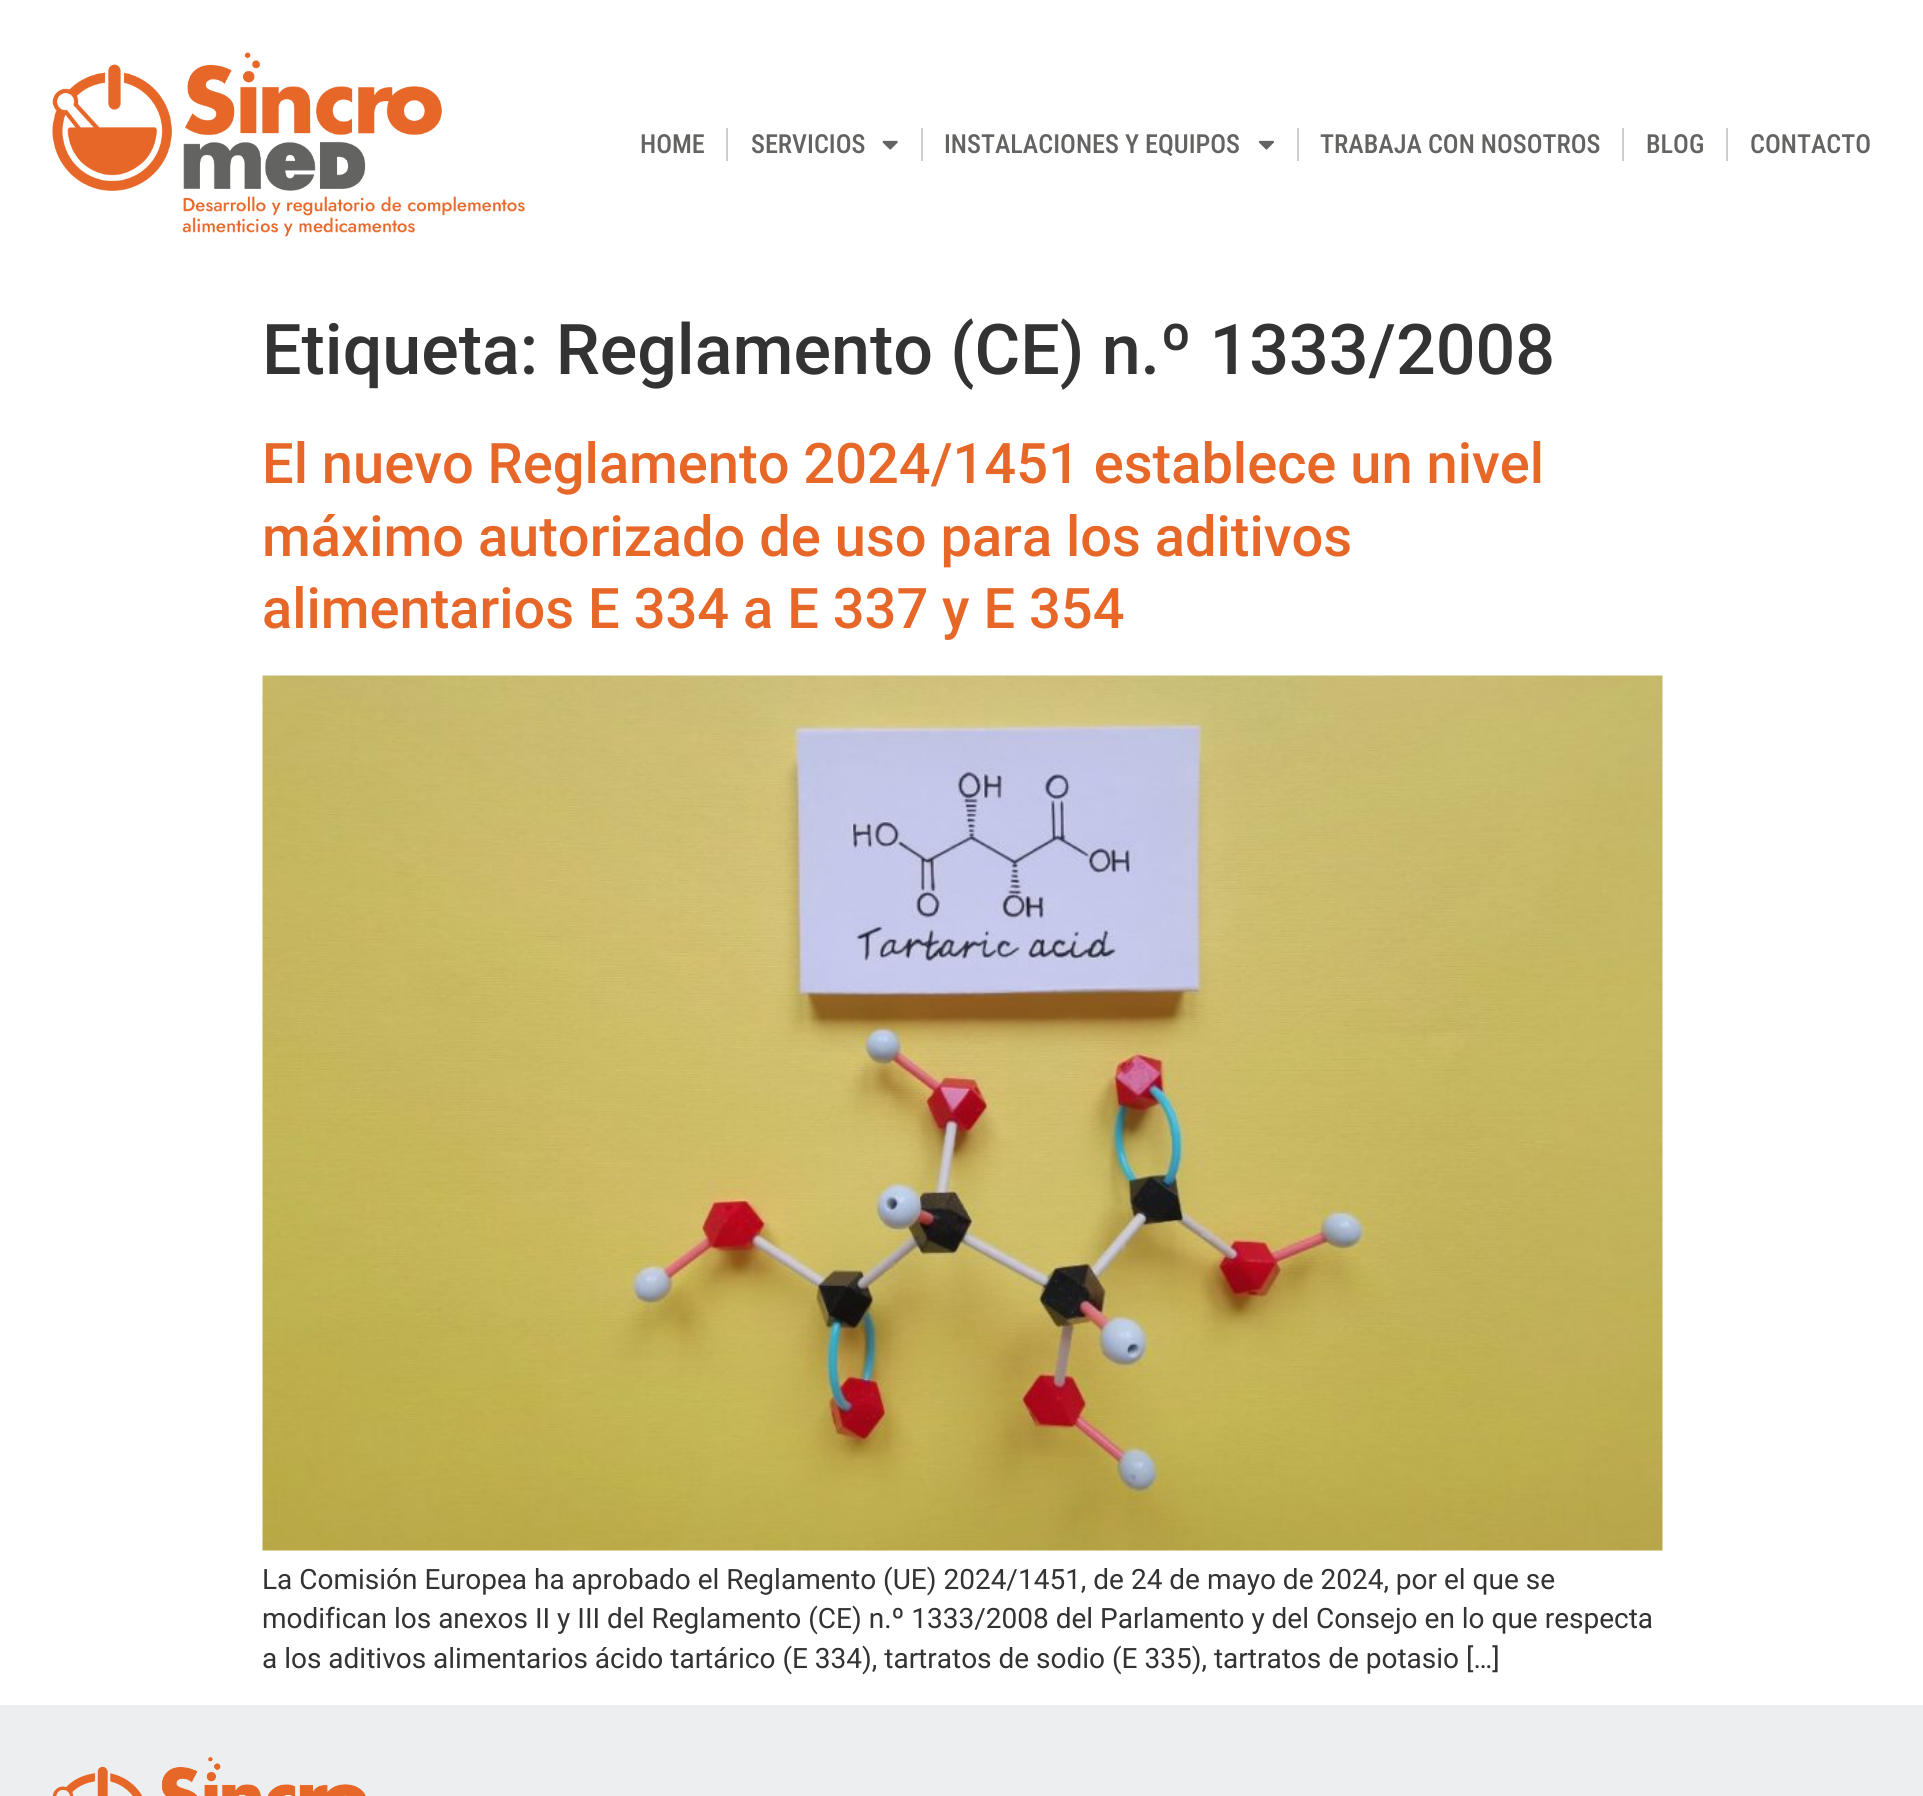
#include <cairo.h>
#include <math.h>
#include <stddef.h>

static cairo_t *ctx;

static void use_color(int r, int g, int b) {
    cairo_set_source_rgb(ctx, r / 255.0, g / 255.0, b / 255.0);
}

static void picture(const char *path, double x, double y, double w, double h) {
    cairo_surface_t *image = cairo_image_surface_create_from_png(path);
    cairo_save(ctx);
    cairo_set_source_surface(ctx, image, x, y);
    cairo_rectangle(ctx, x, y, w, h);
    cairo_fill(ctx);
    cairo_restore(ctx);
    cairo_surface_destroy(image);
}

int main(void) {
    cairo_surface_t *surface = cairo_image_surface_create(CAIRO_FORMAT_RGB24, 1923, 1796);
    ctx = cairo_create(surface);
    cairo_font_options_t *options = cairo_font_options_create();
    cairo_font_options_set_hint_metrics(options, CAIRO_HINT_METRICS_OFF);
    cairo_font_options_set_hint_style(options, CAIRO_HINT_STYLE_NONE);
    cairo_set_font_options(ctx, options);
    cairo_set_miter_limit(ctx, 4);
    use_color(255, 255, 255);
    cairo_paint(ctx);
    picture("img1.png", 52, 52, 473, 185);
    cairo_select_font_face(ctx, "Roboto Condensed Medium", CAIRO_FONT_SLANT_NORMAL, CAIRO_FONT_WEIGHT_NORMAL);
    cairo_set_font_size(ctx, 26.25);
    use_color(99, 99, 98);
    cairo_move_to(ctx, 640, 153);
    cairo_show_text(ctx, "HOME");
    use_color(206, 206, 206);
    cairo_rectangle(ctx, 726, 128, 2, 33);
    cairo_fill(ctx);
    use_color(99, 99, 98);
    cairo_move_to(ctx, 751, 153);
    cairo_show_text(ctx, "SERVICIOS");
    picture("img2.png", 882, 140, 16, 10);
    use_color(206, 206, 206);
    cairo_rectangle(ctx, 921, 128, 2, 33);
    cairo_fill(ctx);
    use_color(99, 99, 98);
    cairo_move_to(ctx, 944, 153);
    cairo_show_text(ctx, "INSTALACIONES Y EQUIPOS");
    picture("img3.png", 1258, 140, 16, 10);
    use_color(206, 206, 206);
    cairo_rectangle(ctx, 1297, 128, 2, 33);
    cairo_fill(ctx);
    use_color(99, 99, 98);
    cairo_move_to(ctx, 1320, 153);
    cairo_show_text(ctx, "TRABAJA CON NOSOTROS");
    use_color(206, 206, 206);
    cairo_rectangle(ctx, 1622, 128, 2, 33);
    cairo_fill(ctx);
    use_color(99, 99, 98);
    cairo_move_to(ctx, 1646, 153);
    cairo_show_text(ctx, "BLOG");
    use_color(206, 206, 206);
    cairo_rectangle(ctx, 1726, 128, 2, 33);
    cairo_fill(ctx);
    use_color(99, 99, 98);
    cairo_move_to(ctx, 1750, 153);
    cairo_show_text(ctx, "CONTACTO");
    cairo_select_font_face(ctx, "Roboto Medium", CAIRO_FONT_SLANT_NORMAL, CAIRO_FONT_WEIGHT_NORMAL);
    cairo_set_font_size(ctx, 70);
    use_color(51, 51, 51);
    cairo_move_to(ctx, 262, 374);
    cairo_show_text(ctx, "Etiqueta: Reglamento (CE) n.º 1333/2008");
    cairo_set_font_size(ctx, 56);
    use_color(230, 103, 40);
    cairo_move_to(ctx, 262, 483);
    cairo_show_text(ctx, "El nuevo Reglamento 2024/1451 establece un nivel");
    cairo_move_to(ctx, 262, 556);
    cairo_show_text(ctx, "máximo autorizado de uso para los aditivos");
    cairo_move_to(ctx, 262, 628);
    cairo_show_text(ctx, "alimentarios E 334 a E 337 y E 354");
    picture("img4.png", 262, 675, 1401, 876);
    cairo_select_font_face(ctx, "Roboto", CAIRO_FONT_SLANT_NORMAL, CAIRO_FONT_WEIGHT_NORMAL);
    cairo_set_font_size(ctx, 28);
    use_color(51, 51, 51);
    cairo_move_to(ctx, 262, 1589);
    cairo_show_text(ctx, "La Comisión Europea ha aprobado el Reglamento (UE) 2024/1451, de 24 de mayo de 2024, por el que se");
    cairo_move_to(ctx, 262, 1628);
    cairo_show_text(ctx, "modifican los anexos II y III del Reglamento (CE) n.º 1333/2008 del Parlamento y del Consejo en lo que respecta");
    cairo_move_to(ctx, 262, 1668);
    cairo_show_text(ctx, "a los aditivos alimentarios ácido tartárico (E 334), tartratos de sodio (E 335), tartratos de potasio […]");
    use_color(237, 238, 240);
    cairo_rectangle(ctx, 0, 1705, 1923, 91);
    cairo_fill(ctx);
    picture("img5.png", 52, 1757, 314, 39);
    cairo_surface_write_to_png(surface, "result.png");
    cairo_font_options_destroy(options);
    cairo_destroy(ctx);
    cairo_surface_destroy(surface);
    return 0;
}
